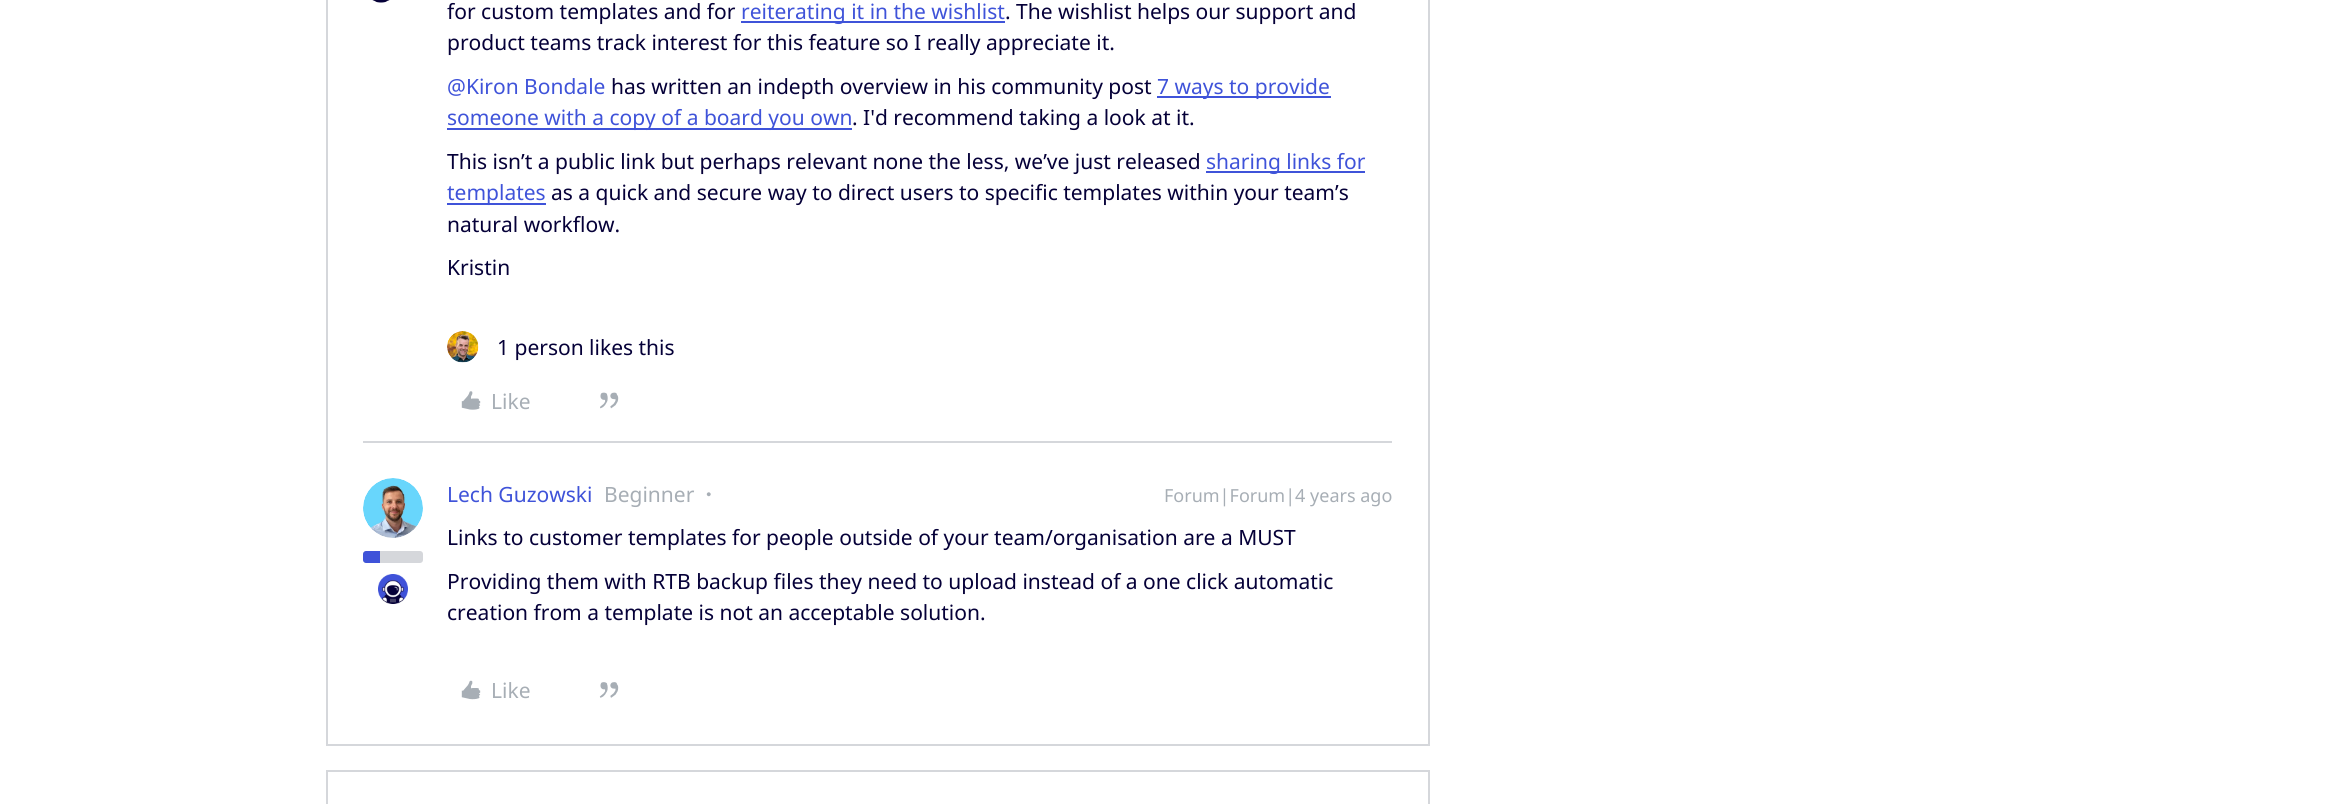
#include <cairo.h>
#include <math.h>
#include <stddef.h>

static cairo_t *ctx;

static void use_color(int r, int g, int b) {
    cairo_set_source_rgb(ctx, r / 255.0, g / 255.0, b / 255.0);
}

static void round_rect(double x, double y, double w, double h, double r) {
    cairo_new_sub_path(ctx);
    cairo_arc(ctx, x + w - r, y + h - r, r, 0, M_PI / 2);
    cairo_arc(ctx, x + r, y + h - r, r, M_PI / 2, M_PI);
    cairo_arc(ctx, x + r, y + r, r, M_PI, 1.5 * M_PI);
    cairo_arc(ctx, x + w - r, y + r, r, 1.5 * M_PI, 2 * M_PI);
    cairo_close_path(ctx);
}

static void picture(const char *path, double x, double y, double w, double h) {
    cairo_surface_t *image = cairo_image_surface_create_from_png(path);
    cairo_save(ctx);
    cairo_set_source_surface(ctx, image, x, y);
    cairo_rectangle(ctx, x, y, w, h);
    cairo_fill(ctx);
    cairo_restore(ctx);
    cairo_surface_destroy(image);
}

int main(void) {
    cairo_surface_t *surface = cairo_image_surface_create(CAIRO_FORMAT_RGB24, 2331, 804);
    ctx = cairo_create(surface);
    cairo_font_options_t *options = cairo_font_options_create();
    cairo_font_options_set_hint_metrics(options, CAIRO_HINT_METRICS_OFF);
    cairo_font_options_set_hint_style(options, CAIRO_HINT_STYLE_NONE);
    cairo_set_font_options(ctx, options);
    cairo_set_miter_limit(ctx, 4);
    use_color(255, 255, 255);
    cairo_paint(ctx);
    cairo_rectangle(ctx, 327, -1, 1102, 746);
    use_color(213, 215, 219);
    cairo_stroke(ctx);
    picture("img1.png", 372, 0, 18, 3);
    cairo_select_font_face(ctx, "Noto Sans", CAIRO_FONT_SLANT_NORMAL, CAIRO_FONT_WEIGHT_NORMAL);
    cairo_set_font_size(ctx, 21);
    use_color(5, 0, 56);
    cairo_move_to(ctx, 447, 19);
    cairo_show_text(ctx, "for custom templates and for");
    use_color(63, 83, 217);
    cairo_rectangle(ctx, 741, 21, 264, 2);
    cairo_fill(ctx);
    cairo_move_to(ctx, 741, 19);
    cairo_show_text(ctx, "reiterating it in the wishlist");
    use_color(5, 0, 56);
    cairo_move_to(ctx, 1005, 19);
    cairo_show_text(ctx, ". The wishlist helps our support and");
    cairo_move_to(ctx, 447, 50);
    cairo_show_text(ctx, "product teams track interest for this feature so I really appreciate it.");
    use_color(63, 83, 217);
    cairo_move_to(ctx, 447, 94);
    cairo_show_text(ctx, "@Kiron Bondale");
    use_color(5, 0, 56);
    cairo_move_to(ctx, 611, 94);
    cairo_show_text(ctx, "has written an indepth overview in his community post");
    use_color(63, 83, 217);
    cairo_rectangle(ctx, 1157, 96, 174, 2);
    cairo_fill(ctx);
    cairo_move_to(ctx, 1157, 94);
    cairo_show_text(ctx, "7 ways to provide");
    cairo_rectangle(ctx, 447, 128, 405, 2);
    cairo_fill(ctx);
    cairo_move_to(ctx, 447, 125);
    cairo_show_text(ctx, "someone with a copy of a board you own");
    use_color(5, 0, 56);
    cairo_move_to(ctx, 852, 125);
    cairo_show_text(ctx, ". I'd recommend taking a look at it.");
    cairo_move_to(ctx, 447, 169);
    cairo_show_text(ctx, "This isn’t a public link but perhaps relevant none the less, we’ve just released");
    use_color(63, 83, 217);
    cairo_rectangle(ctx, 1206, 171, 159, 2);
    cairo_fill(ctx);
    cairo_move_to(ctx, 1206, 169);
    cairo_show_text(ctx, "sharing links for");
    cairo_rectangle(ctx, 447, 203, 99, 2);
    cairo_fill(ctx);
    cairo_move_to(ctx, 447, 200);
    cairo_show_text(ctx, "templates");
    use_color(5, 0, 56);
    cairo_move_to(ctx, 551, 200);
    cairo_show_text(ctx, "as a quick and secure way to direct users to specific templates within your team’s");
    cairo_move_to(ctx, 447, 232);
    cairo_show_text(ctx, "natural workflow.");
    cairo_move_to(ctx, 447, 275);
    cairo_show_text(ctx, "Kristin");
    picture("img2.png", 447, 331, 32, 32);
    cairo_move_to(ctx, 497, 355);
    cairo_show_text(ctx, "1 person likes this");
    picture("img3.png", 461, 391, 20, 19);
    use_color(167, 174, 181);
    cairo_move_to(ctx, 491, 409);
    cairo_show_text(ctx, "Like");
    picture("img4.png", 600, 392, 19, 17);
    use_color(213, 215, 219);
    cairo_rectangle(ctx, 363, 441, 1029, 2);
    cairo_fill(ctx);
    picture("img5.png", 363, 478, 60, 60);
    round_rect(363, 551, 60, 12, 3);
    cairo_fill(ctx);
    use_color(63, 83, 217);
    cairo_new_path(ctx);
    cairo_move_to(ctx, 366, 551);
    cairo_line_to(ctx, 380, 551);
    cairo_line_to(ctx, 380, 563);
    cairo_line_to(ctx, 366, 563);
    cairo_curve_to(ctx, 364.5, 563, 363, 561.5, 363, 560);
    cairo_line_to(ctx, 363, 554);
    cairo_curve_to(ctx, 363, 552.5, 364.5, 551, 366, 551);
    cairo_close_path(ctx);
    cairo_fill(ctx);
    picture("img6.png", 378, 574, 30, 30);
    cairo_move_to(ctx, 447, 502);
    cairo_show_text(ctx, "Lech Guzowski");
    use_color(167, 174, 181);
    cairo_move_to(ctx, 604, 502);
    cairo_show_text(ctx, "Beginner");
    picture("img7.png", 706, 492, 5, 5);
    cairo_set_font_size(ctx, 18);
    cairo_move_to(ctx, 1164, 502);
    cairo_show_text(ctx, "Forum|Forum|4 years ago");
    cairo_set_font_size(ctx, 21);
    use_color(5, 0, 56);
    cairo_move_to(ctx, 447, 545);
    cairo_show_text(ctx, "Links to customer templates for people outside of your team/organisation are a MUST");
    cairo_move_to(ctx, 447, 589);
    cairo_show_text(ctx, "Providing them with RTB backup files they need to upload instead of a one click automatic");
    cairo_move_to(ctx, 447, 620);
    cairo_show_text(ctx, "creation from a template is not an acceptable solution.");
    picture("img8.png", 461, 680, 20, 20);
    use_color(167, 174, 181);
    cairo_move_to(ctx, 491, 698);
    cairo_show_text(ctx, "Like");
    picture("img9.png", 599, 682, 20, 16);
    cairo_rectangle(ctx, 327, 771, 1102, 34);
    use_color(213, 215, 219);
    cairo_stroke(ctx);
    cairo_surface_write_to_png(surface, "result.png");
    cairo_font_options_destroy(options);
    cairo_destroy(ctx);
    cairo_surface_destroy(surface);
    return 0;
}
